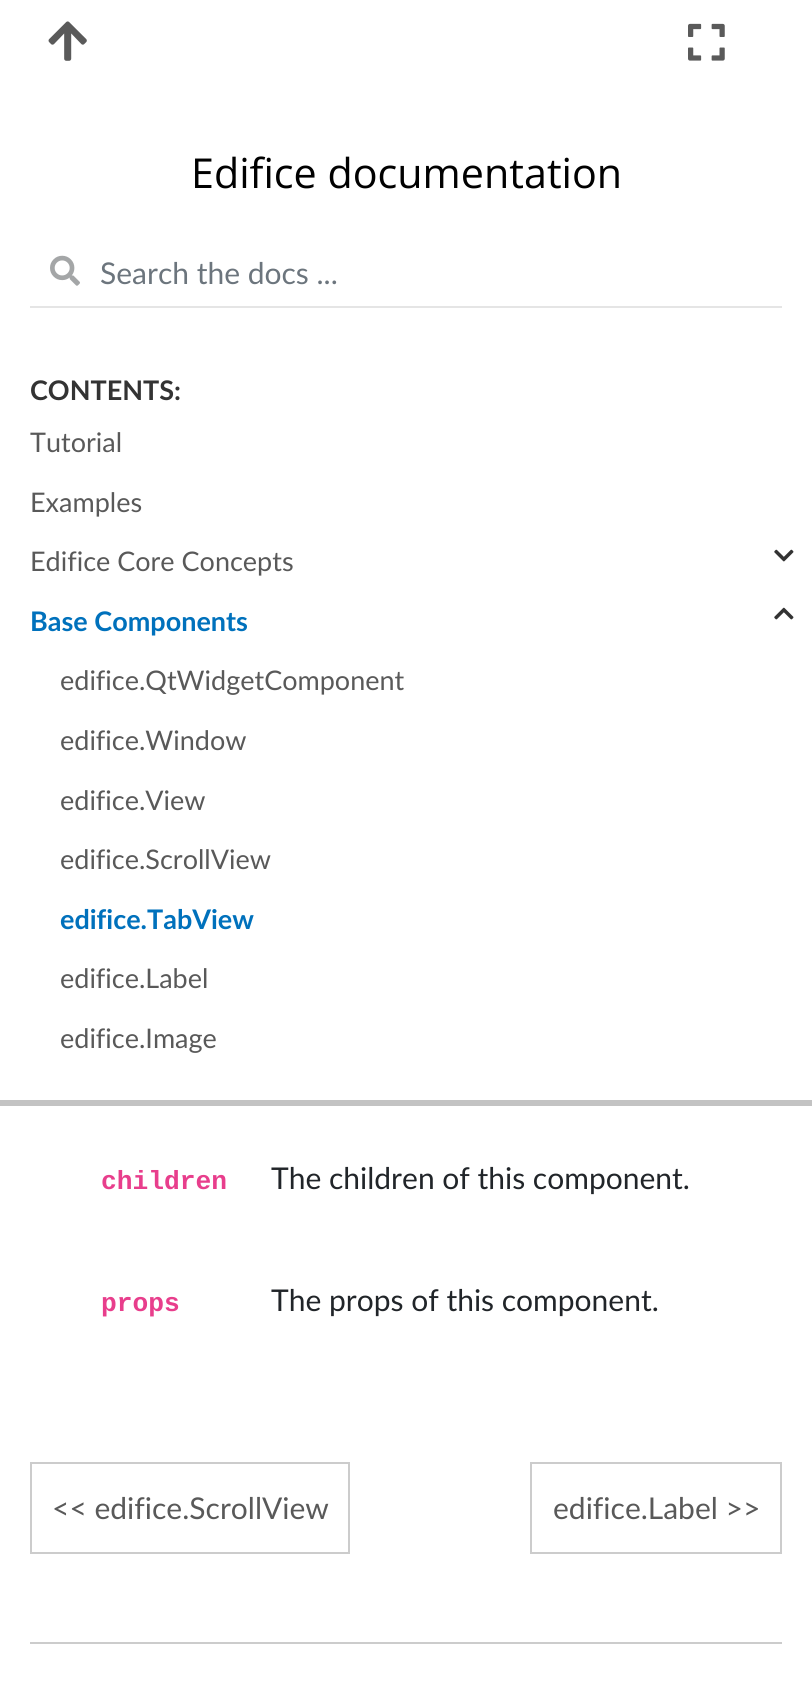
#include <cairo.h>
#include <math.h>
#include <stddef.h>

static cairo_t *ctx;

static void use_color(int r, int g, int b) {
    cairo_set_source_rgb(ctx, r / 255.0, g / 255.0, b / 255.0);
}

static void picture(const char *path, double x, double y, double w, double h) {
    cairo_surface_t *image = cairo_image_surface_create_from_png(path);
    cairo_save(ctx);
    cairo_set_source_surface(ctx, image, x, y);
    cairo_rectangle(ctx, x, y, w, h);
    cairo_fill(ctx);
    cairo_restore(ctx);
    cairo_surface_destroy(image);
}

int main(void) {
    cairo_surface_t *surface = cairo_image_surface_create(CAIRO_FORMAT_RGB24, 812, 1692);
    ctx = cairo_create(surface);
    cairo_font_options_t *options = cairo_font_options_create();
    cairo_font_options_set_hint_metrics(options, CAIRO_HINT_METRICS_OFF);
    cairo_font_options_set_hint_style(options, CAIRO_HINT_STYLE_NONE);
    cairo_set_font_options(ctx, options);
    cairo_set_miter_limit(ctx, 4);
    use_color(255, 255, 255);
    cairo_paint(ctx);
    use_color(195, 195, 195);
    cairo_rectangle(ctx, 0, 1100, 812, 6);
    cairo_fill(ctx);
    cairo_select_font_face(ctx, "Open Sans", CAIRO_FONT_SLANT_NORMAL, CAIRO_FONT_WEIGHT_NORMAL);
    cairo_set_font_size(ctx, 41.25);
    use_color(0, 0, 0);
    cairo_move_to(ctx, 191, 188);
    cairo_show_text(ctx, "Edifice documentation");
    picture("img1.png", 50, 255, 30, 31);
    use_color(229, 229, 229);
    cairo_rectangle(ctx, 30, 306, 752, 2);
    cairo_fill(ctx);
    cairo_select_font_face(ctx, "Lato", CAIRO_FONT_SLANT_NORMAL, CAIRO_FONT_WEIGHT_NORMAL);
    cairo_set_font_size(ctx, 30);
    use_color(108, 117, 125);
    cairo_move_to(ctx, 100, 284);
    cairo_show_text(ctx, "Search the docs ...");
    cairo_select_font_face(ctx, "Lato", CAIRO_FONT_SLANT_NORMAL, CAIRO_FONT_WEIGHT_BOLD);
    cairo_set_font_size(ctx, 27);
    use_color(51, 51, 51);
    cairo_move_to(ctx, 30, 400);
    cairo_show_text(ctx, "CONTENTS:");
    cairo_select_font_face(ctx, "Lato", CAIRO_FONT_SLANT_NORMAL, CAIRO_FONT_WEIGHT_NORMAL);
    use_color(89, 89, 89);
    cairo_move_to(ctx, 30, 452);
    cairo_show_text(ctx, "Tutorial");
    cairo_move_to(ctx, 30, 512);
    cairo_show_text(ctx, "Examples");
    cairo_move_to(ctx, 30, 571);
    cairo_show_text(ctx, "Edifice Core Concepts");
    picture("img2.png", 774, 549, 20, 13);
    cairo_select_font_face(ctx, "Lato", CAIRO_FONT_SLANT_NORMAL, CAIRO_FONT_WEIGHT_BOLD);
    use_color(0, 113, 188);
    cairo_move_to(ctx, 30, 631);
    cairo_show_text(ctx, "Base Components");
    picture("img3.png", 774, 607, 20, 13);
    cairo_select_font_face(ctx, "Lato", CAIRO_FONT_SLANT_NORMAL, CAIRO_FONT_WEIGHT_NORMAL);
    use_color(89, 89, 89);
    cairo_move_to(ctx, 60, 690);
    cairo_show_text(ctx, "edifice.QtWidgetComponent");
    cairo_move_to(ctx, 60, 750);
    cairo_show_text(ctx, "edifice.Window");
    cairo_move_to(ctx, 60, 810);
    cairo_show_text(ctx, "edifice.View");
    cairo_move_to(ctx, 60, 869);
    cairo_show_text(ctx, "edifice.ScrollView");
    cairo_select_font_face(ctx, "Lato", CAIRO_FONT_SLANT_NORMAL, CAIRO_FONT_WEIGHT_BOLD);
    use_color(0, 113, 188);
    cairo_move_to(ctx, 60, 929);
    cairo_show_text(ctx, "edifice.TabView");
    cairo_select_font_face(ctx, "Lato", CAIRO_FONT_SLANT_NORMAL, CAIRO_FONT_WEIGHT_NORMAL);
    use_color(89, 89, 89);
    cairo_move_to(ctx, 60, 988);
    cairo_show_text(ctx, "edifice.Label");
    cairo_move_to(ctx, 60, 1048);
    cairo_show_text(ctx, "edifice.Image");
    picture("img4.png", 48, 21, 39, 40);
    picture("img5.png", 688, 23, 37, 38);
    cairo_select_font_face(ctx, "Liberation Mono", CAIRO_FONT_SLANT_NORMAL, CAIRO_FONT_WEIGHT_BOLD);
    cairo_set_font_size(ctx, 26.25);
    use_color(232, 62, 140);
    cairo_move_to(ctx, 101, 1189);
    cairo_show_text(ctx, "children");
    cairo_select_font_face(ctx, "Lato", CAIRO_FONT_SLANT_NORMAL, CAIRO_FONT_WEIGHT_NORMAL);
    cairo_set_font_size(ctx, 30);
    use_color(33, 37, 41);
    cairo_move_to(ctx, 271, 1189);
    cairo_show_text(ctx, "The children of this component.");
    cairo_select_font_face(ctx, "Liberation Mono", CAIRO_FONT_SLANT_NORMAL, CAIRO_FONT_WEIGHT_BOLD);
    cairo_set_font_size(ctx, 26.25);
    use_color(232, 62, 140);
    cairo_move_to(ctx, 101, 1311);
    cairo_show_text(ctx, "props");
    cairo_select_font_face(ctx, "Lato", CAIRO_FONT_SLANT_NORMAL, CAIRO_FONT_WEIGHT_NORMAL);
    cairo_set_font_size(ctx, 30);
    use_color(33, 37, 41);
    cairo_move_to(ctx, 271, 1311);
    cairo_show_text(ctx, "The props of this component.");
    cairo_rectangle(ctx, 31, 1463, 318, 90);
    use_color(204, 204, 204);
    cairo_stroke(ctx);
    use_color(89, 89, 89);
    cairo_move_to(ctx, 52, 1519);
    cairo_show_text(ctx, "<< edifice.ScrollView");
    cairo_rectangle(ctx, 531, 1463, 250, 90);
    use_color(204, 204, 204);
    cairo_stroke(ctx);
    use_color(89, 89, 89);
    cairo_move_to(ctx, 553, 1519);
    cairo_show_text(ctx, "edifice.Label >>");
    use_color(204, 204, 204);
    cairo_rectangle(ctx, 30, 1642, 752, 2);
    cairo_fill(ctx);
    cairo_surface_write_to_png(surface, "result.png");
    cairo_font_options_destroy(options);
    cairo_destroy(ctx);
    cairo_surface_destroy(surface);
    return 0;
}
